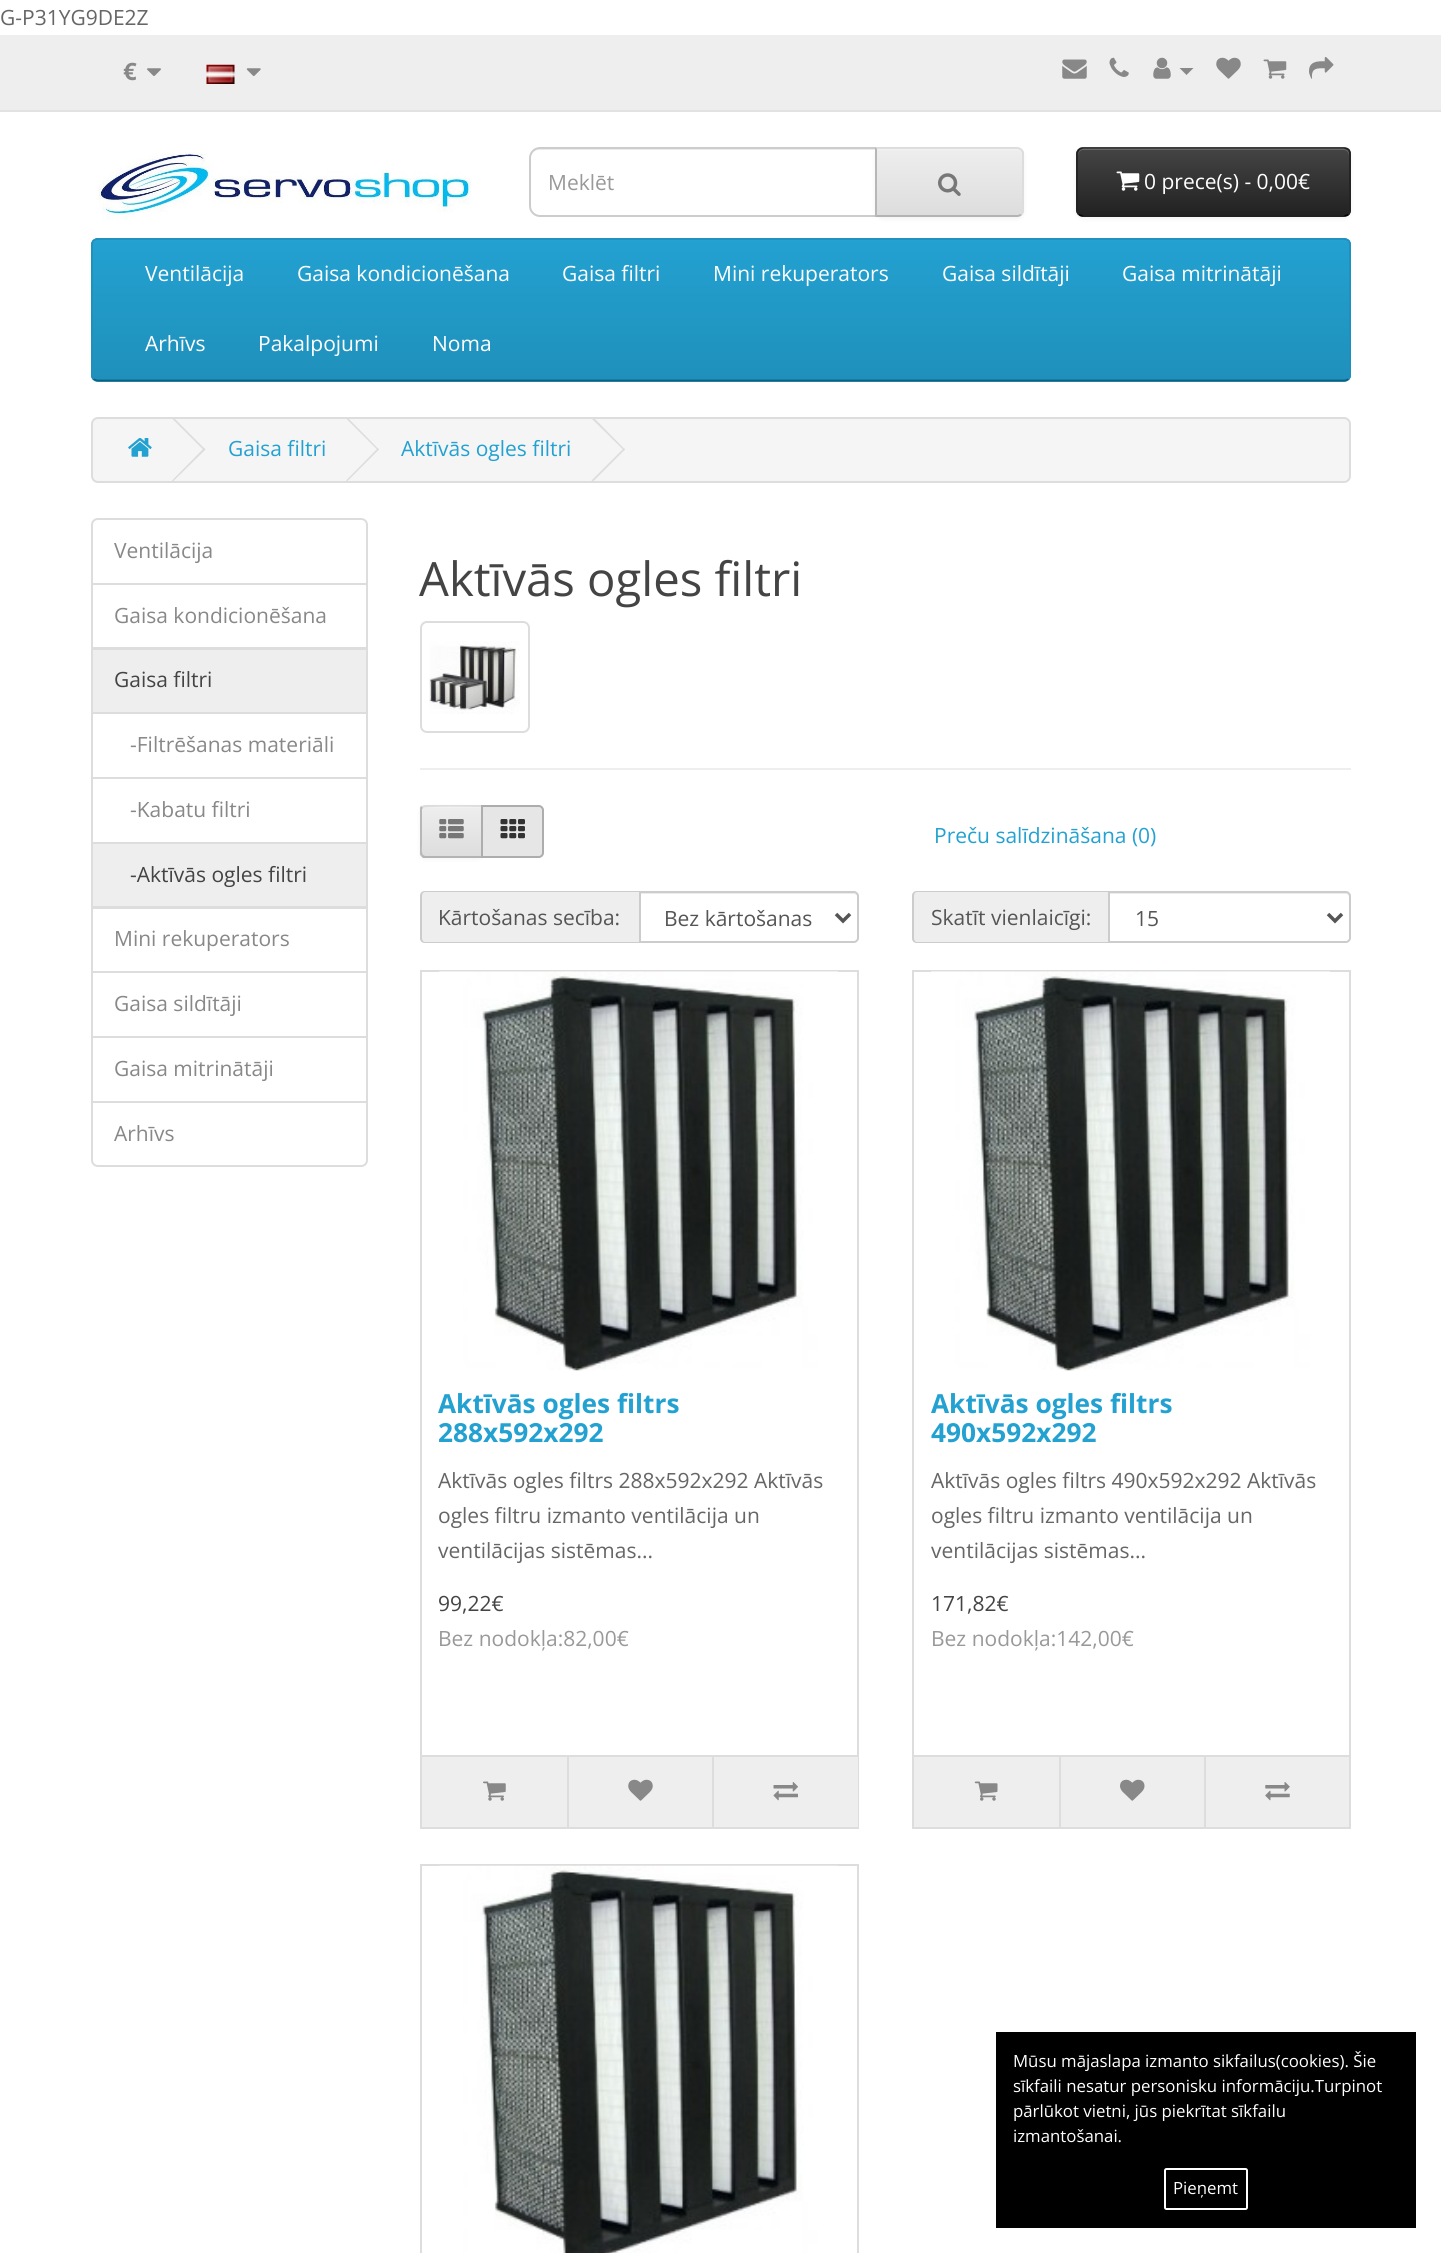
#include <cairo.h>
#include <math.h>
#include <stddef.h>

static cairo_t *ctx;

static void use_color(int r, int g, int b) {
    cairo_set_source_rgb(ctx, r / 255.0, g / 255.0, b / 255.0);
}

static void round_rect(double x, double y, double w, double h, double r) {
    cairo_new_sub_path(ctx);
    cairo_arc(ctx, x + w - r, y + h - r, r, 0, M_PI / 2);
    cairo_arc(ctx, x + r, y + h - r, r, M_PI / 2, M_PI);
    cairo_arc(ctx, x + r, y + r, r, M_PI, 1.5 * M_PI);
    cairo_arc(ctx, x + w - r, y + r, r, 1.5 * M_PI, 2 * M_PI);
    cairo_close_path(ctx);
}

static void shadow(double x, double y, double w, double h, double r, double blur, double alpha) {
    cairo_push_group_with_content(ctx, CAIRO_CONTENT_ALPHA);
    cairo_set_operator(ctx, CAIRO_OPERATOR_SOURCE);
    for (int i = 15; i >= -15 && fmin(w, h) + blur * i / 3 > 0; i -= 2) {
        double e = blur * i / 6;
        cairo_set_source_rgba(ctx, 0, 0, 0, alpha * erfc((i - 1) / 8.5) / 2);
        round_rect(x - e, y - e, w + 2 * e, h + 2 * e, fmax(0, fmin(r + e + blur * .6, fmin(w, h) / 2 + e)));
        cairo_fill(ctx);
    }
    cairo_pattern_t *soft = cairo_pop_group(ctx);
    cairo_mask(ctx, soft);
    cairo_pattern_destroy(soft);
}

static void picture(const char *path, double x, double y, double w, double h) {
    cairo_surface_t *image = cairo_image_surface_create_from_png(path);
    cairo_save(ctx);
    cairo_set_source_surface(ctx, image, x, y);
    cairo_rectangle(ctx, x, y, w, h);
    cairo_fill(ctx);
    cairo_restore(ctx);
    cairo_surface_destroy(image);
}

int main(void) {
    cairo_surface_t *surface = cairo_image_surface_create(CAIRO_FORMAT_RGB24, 1441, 2253);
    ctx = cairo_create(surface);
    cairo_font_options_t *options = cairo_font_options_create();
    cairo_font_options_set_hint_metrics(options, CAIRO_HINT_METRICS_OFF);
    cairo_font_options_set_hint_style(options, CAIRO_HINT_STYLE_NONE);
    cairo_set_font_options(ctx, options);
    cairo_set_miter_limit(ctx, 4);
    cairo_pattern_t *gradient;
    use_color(255, 255, 255);
    cairo_paint(ctx);
    cairo_select_font_face(ctx, "Open Sans", CAIRO_FONT_SLANT_NORMAL, CAIRO_FONT_WEIGHT_NORMAL);
    cairo_set_font_size(ctx, 21);
    use_color(102, 102, 102);
    cairo_move_to(ctx, 0, 25);
    cairo_show_text(ctx, "G-P31YG9DE2Z");
    use_color(238, 238, 238);
    cairo_rectangle(ctx, 0, 35, 1441, 75);
    cairo_fill(ctx);
    use_color(226, 226, 226);
    cairo_rectangle(ctx, 0, 110, 1441, 2);
    cairo_fill(ctx);
    cairo_select_font_face(ctx, "Open Sans", CAIRO_FONT_SLANT_NORMAL, CAIRO_FONT_WEIGHT_BOLD);
    cairo_set_font_size(ctx, 24);
    use_color(136, 136, 136);
    cairo_move_to(ctx, 123, 80);
    cairo_show_text(ctx, "€");
    picture("img1.png", 147, 68, 14, 8);
    picture("img2.png", 206, 64, 29, 20);
    picture("img3.png", 246, 68, 15, 8);
    picture("img4.png", 1062, 59, 25, 20);
    picture("img5.png", 1109, 57, 20, 20);
    picture("img6.png", 1153, 57, 18, 22);
    cairo_new_path(ctx);
    cairo_move_to(ctx, 1179.5, 68);
    cairo_line_to(ctx, 1193.5, 68);
    cairo_line_to(ctx, 1186.5, 75);
    cairo_close_path(ctx);
    cairo_fill(ctx);
    picture("img7.png", 1216, 57, 25, 22);
    picture("img8.png", 1263, 59, 24, 20);
    picture("img9.png", 1309, 57, 25, 22);
    picture("img10.png", 97, 152, 375, 68);
    use_color(236, 236, 236);
    cairo_new_path(ctx);
    cairo_move_to(ctx, 539, 150);
    cairo_line_to(ctx, 875, 150);
    cairo_line_to(ctx, 875, 149);
    cairo_line_to(ctx, 539, 149);
    cairo_curve_to(ctx, 533, 149, 530, 154, 530, 159);
    cairo_curve_to(ctx, 530, 154, 534, 150, 539, 150);
    cairo_close_path(ctx);
    cairo_fill(ctx);
    cairo_new_path(ctx);
    cairo_move_to(ctx, 540, 148);
    cairo_line_to(ctx, 876, 148);
    cairo_line_to(ctx, 876, 216);
    cairo_line_to(ctx, 540, 216);
    cairo_curve_to(ctx, 534.5, 216, 530, 211.5, 530, 206);
    cairo_line_to(ctx, 530, 158);
    cairo_curve_to(ctx, 530, 152.5, 534.5, 148, 540, 148);
    cairo_close_path(ctx);
    use_color(204, 204, 204);
    cairo_stroke(ctx);
    cairo_select_font_face(ctx, "Open Sans", CAIRO_FONT_SLANT_NORMAL, CAIRO_FONT_WEIGHT_NORMAL);
    cairo_set_font_size(ctx, 21);
    use_color(153, 153, 153);
    cairo_move_to(ctx, 548, 190);
    cairo_show_text(ctx, "Meklēt");
    use_color(0, 0, 0);
    shadow(875, 149, 149, 70, 7, 2, 0.05);
    cairo_save(ctx);
    cairo_new_path(ctx);
    cairo_move_to(ctx, 875, 147);
    cairo_line_to(ctx, 1017, 147);
    cairo_curve_to(ctx, 1021, 147, 1024, 150, 1024, 154);
    cairo_line_to(ctx, 1024, 210);
    cairo_curve_to(ctx, 1024, 214, 1021, 217, 1017, 217);
    cairo_line_to(ctx, 875, 217);
    cairo_close_path(ctx);
    cairo_clip(ctx);
    gradient = cairo_pattern_create_linear(949, 149, 949, 215);
    cairo_pattern_add_color_stop_rgba(gradient, 0, 0.933, 0.933, 0.933, 1);
    cairo_pattern_add_color_stop_rgba(gradient, 1, 0.867, 0.867, 0.867, 1);
    cairo_set_source(ctx, gradient);
    cairo_pattern_destroy(gradient);
    cairo_rectangle(ctx, 877, 149, 147, 66);
    cairo_fill(ctx);
    cairo_restore(ctx);
    use_color(241, 241, 241);
    cairo_new_path(ctx);
    cairo_move_to(ctx, 877, 150);
    cairo_line_to(ctx, 1017, 150);
    cairo_curve_to(ctx, 1020, 150, 1022, 153, 1022, 156);
    cairo_line_to(ctx, 1022, 154);
    cairo_curve_to(ctx, 1022, 151, 1020, 149, 1017, 149);
    cairo_line_to(ctx, 877, 149);
    cairo_close_path(ctx);
    cairo_fill(ctx);
    use_color(221, 221, 221);
    cairo_new_path(ctx);
    cairo_move_to(ctx, 875, 147);
    cairo_line_to(ctx, 877, 149);
    cairo_line_to(ctx, 1018, 149);
    cairo_line_to(ctx, 1020, 150);
    cairo_line_to(ctx, 1022, 149);
    cairo_curve_to(ctx, 1021, 148, 1019, 147, 1017, 147);
    cairo_close_path(ctx);
    cairo_fill(ctx);
    cairo_new_path(ctx);
    cairo_move_to(ctx, 1024, 212);
    cairo_line_to(ctx, 1022, 215);
    cairo_line_to(ctx, 1020, 214);
    cairo_curve_to(ctx, 1021, 213, 1022, 212, 1022, 210);
    cairo_line_to(ctx, 1022, 154);
    cairo_curve_to(ctx, 1022, 152, 1021, 151, 1020, 150);
    cairo_line_to(ctx, 1022, 149);
    cairo_line_to(ctx, 1024, 152);
    cairo_close_path(ctx);
    cairo_fill(ctx);
    use_color(179, 179, 179);
    cairo_new_path(ctx);
    cairo_move_to(ctx, 1017, 217);
    cairo_curve_to(ctx, 1019, 217, 1021, 216, 1022, 215);
    cairo_line_to(ctx, 1020, 214);
    cairo_line_to(ctx, 1018, 215);
    cairo_line_to(ctx, 877, 215);
    cairo_line_to(ctx, 875, 217);
    cairo_close_path(ctx);
    cairo_fill(ctx);
    use_color(183, 183, 183);
    cairo_new_path(ctx);
    cairo_move_to(ctx, 875, 147);
    cairo_line_to(ctx, 875, 217);
    cairo_line_to(ctx, 877, 215);
    cairo_line_to(ctx, 877, 149);
    cairo_close_path(ctx);
    cairo_fill(ctx);
    picture("img11.png", 938, 173, 23, 23);
    use_color(0, 0, 0);
    shadow(1076, 149, 275, 70, 7, 2, 0.05);
    cairo_save(ctx);
    round_rect(1076, 147, 275, 70, 7);
    cairo_clip(ctx);
    gradient = cairo_pattern_create_linear(1214, 149, 1214, 215);
    cairo_pattern_add_color_stop_rgba(gradient, 0, 0.267, 0.267, 0.267, 1);
    cairo_pattern_add_color_stop_rgba(gradient, 1, 0.133, 0.133, 0.133, 1);
    cairo_set_source(ctx, gradient);
    cairo_pattern_destroy(gradient);
    cairo_rectangle(ctx, 1076, 149, 275, 66);
    cairo_fill(ctx);
    cairo_restore(ctx);
    use_color(105, 105, 105);
    cairo_new_path(ctx);
    cairo_move_to(ctx, 1083, 150);
    cairo_line_to(ctx, 1344, 150);
    cairo_curve_to(ctx, 1347, 150, 1349, 153, 1349, 156);
    cairo_line_to(ctx, 1349, 154);
    cairo_curve_to(ctx, 1349, 151, 1347, 149, 1344, 149);
    cairo_line_to(ctx, 1083, 149);
    cairo_curve_to(ctx, 1080, 149, 1078, 151, 1078, 154);
    cairo_line_to(ctx, 1078, 156);
    cairo_curve_to(ctx, 1078, 153, 1080, 150, 1083, 150);
    cairo_close_path(ctx);
    cairo_fill(ctx);
    cairo_new_path(ctx);
    cairo_move_to(ctx, 1348.5, 214.5);
    cairo_curve_to(ctx, 1347, 215.5, 1345.5, 216, 1344, 216);
    cairo_line_to(ctx, 1083, 216);
    cairo_curve_to(ctx, 1081.5, 216, 1080, 215.5, 1079, 214.5);
    use_color(0, 0, 0);
    cairo_set_line_width(ctx, 1.8);
    cairo_stroke(ctx);
    cairo_new_path(ctx);
    cairo_move_to(ctx, 1079, 214.5);
    cairo_curve_to(ctx, 1078, 213, 1077, 211.5, 1077, 210);
    cairo_line_to(ctx, 1077, 154);
    cairo_curve_to(ctx, 1077, 152.5, 1078, 151, 1079, 149.5);
    cairo_curve_to(ctx, 1080, 148.5, 1081.5, 148, 1083, 148);
    cairo_line_to(ctx, 1344, 148);
    cairo_curve_to(ctx, 1345.5, 148, 1347, 148.5, 1348.5, 149.5);
    cairo_curve_to(ctx, 1349.5, 151, 1350, 152.5, 1350, 154);
    cairo_line_to(ctx, 1350, 210);
    cairo_curve_to(ctx, 1350, 211.5, 1349.5, 213, 1348.5, 214.5);
    use_color(34, 34, 34);
    cairo_stroke(ctx);
    picture("img12.png", 1116, 171, 24, 20);
    use_color(255, 255, 255);
    cairo_move_to(ctx, 1144, 189);
    cairo_show_text(ctx, "0 prece(s) - 0,00€");
    use_color(34, 154, 200);
    round_rect(91, 238, 1260, 144, 7);
    cairo_fill(ctx);
    cairo_save(ctx);
    round_rect(91, 238, 1260, 144, 7);
    cairo_clip(ctx);
    gradient = cairo_pattern_create_linear(721, 240, 721, 380);
    cairo_pattern_add_color_stop_rgba(gradient, 0, 0.137, 0.631, 0.82, 1);
    cairo_pattern_add_color_stop_rgba(gradient, 1, 0.122, 0.565, 0.733, 1);
    cairo_set_source(ctx, gradient);
    cairo_pattern_destroy(gradient);
    cairo_rectangle(ctx, 91, 240, 1260, 140);
    cairo_fill(ctx);
    cairo_restore(ctx);
    cairo_new_path(ctx);
    cairo_move_to(ctx, 1348.5, 379);
    cairo_curve_to(ctx, 1347, 380, 1345.5, 380.5, 1344, 380.5);
    cairo_line_to(ctx, 98, 380.5);
    cairo_curve_to(ctx, 96.5, 380.5, 95, 380, 93.5, 379);
    use_color(20, 94, 122);
    cairo_stroke(ctx);
    cairo_new_path(ctx);
    cairo_move_to(ctx, 93.5, 379);
    cairo_curve_to(ctx, 92.5, 377.5, 92, 376, 92, 374.5);
    cairo_line_to(ctx, 92, 245);
    cairo_curve_to(ctx, 92, 243.5, 92.5, 242, 93.5, 240.5);
    cairo_curve_to(ctx, 95, 239.5, 96.5, 239, 98, 239);
    cairo_line_to(ctx, 1344, 239);
    cairo_curve_to(ctx, 1345.5, 239, 1347, 239.5, 1348.5, 240.5);
    cairo_curve_to(ctx, 1349.5, 242, 1350, 243.5, 1350, 245);
    cairo_line_to(ctx, 1350, 374.5);
    cairo_curve_to(ctx, 1350, 376, 1349.5, 377.5, 1348.5, 379);
    use_color(31, 144, 187);
    cairo_stroke(ctx);
    use_color(255, 255, 255);
    cairo_move_to(ctx, 145, 281);
    cairo_show_text(ctx, "Ventilācija");
    cairo_move_to(ctx, 297, 281);
    cairo_show_text(ctx, "Gaisa kondicionēšana");
    cairo_move_to(ctx, 562, 281);
    cairo_show_text(ctx, "Gaisa filtri");
    cairo_move_to(ctx, 713, 281);
    cairo_show_text(ctx, "Mini rekuperators");
    cairo_move_to(ctx, 942, 281);
    cairo_show_text(ctx, "Gaisa sildītāji");
    cairo_move_to(ctx, 1122, 281);
    cairo_show_text(ctx, "Gaisa mitrinātāji");
    cairo_move_to(ctx, 145, 351);
    cairo_show_text(ctx, "Arhīvs");
    cairo_move_to(ctx, 258, 351);
    cairo_show_text(ctx, "Pakalpojumi");
    cairo_move_to(ctx, 432, 351);
    cairo_show_text(ctx, "Noma");
    use_color(245, 245, 245);
    round_rect(92, 418, 1258, 64, 6);
    cairo_fill_preserve(ctx);
    use_color(221, 221, 221);
    cairo_set_line_width(ctx, 2);
    cairo_stroke(ctx);
    picture("img13.png", 128, 438, 24, 19);
    cairo_new_path(ctx);
    cairo_move_to(ctx, 172, 418.5);
    cairo_line_to(ctx, 173, 417);
    cairo_line_to(ctx, 205.5, 449.5);
    cairo_line_to(ctx, 204, 450.5);
    cairo_close_path(ctx);
    cairo_fill(ctx);
    cairo_new_path(ctx);
    cairo_move_to(ctx, 172, 480.5);
    cairo_line_to(ctx, 204, 448);
    cairo_line_to(ctx, 205.5, 449.5);
    cairo_line_to(ctx, 173, 481.5);
    cairo_close_path(ctx);
    cairo_fill(ctx);
    use_color(35, 161, 209);
    cairo_move_to(ctx, 228, 456);
    cairo_show_text(ctx, "Gaisa filtri");
    use_color(221, 221, 221);
    cairo_new_path(ctx);
    cairo_move_to(ctx, 346, 418.5);
    cairo_line_to(ctx, 347, 417);
    cairo_line_to(ctx, 379, 449.5);
    cairo_line_to(ctx, 378, 450.5);
    cairo_close_path(ctx);
    cairo_fill(ctx);
    cairo_new_path(ctx);
    cairo_move_to(ctx, 346, 480.5);
    cairo_line_to(ctx, 378, 448);
    cairo_line_to(ctx, 379, 449.5);
    cairo_line_to(ctx, 347, 481.5);
    cairo_close_path(ctx);
    cairo_fill(ctx);
    use_color(35, 161, 209);
    cairo_move_to(ctx, 401, 456);
    cairo_show_text(ctx, "Aktīvās ogles filtri");
    use_color(221, 221, 221);
    cairo_new_path(ctx);
    cairo_move_to(ctx, 591.5, 418.5);
    cairo_line_to(ctx, 593, 417);
    cairo_line_to(ctx, 625, 449.5);
    cairo_line_to(ctx, 624, 450.5);
    cairo_close_path(ctx);
    cairo_fill(ctx);
    cairo_new_path(ctx);
    cairo_move_to(ctx, 591.5, 480.5);
    cairo_line_to(ctx, 624, 448);
    cairo_line_to(ctx, 625, 449.5);
    cairo_line_to(ctx, 593, 481.5);
    cairo_close_path(ctx);
    cairo_fill(ctx);
    cairo_new_path(ctx);
    cairo_move_to(ctx, 98, 519);
    cairo_line_to(ctx, 361, 519);
    cairo_curve_to(ctx, 364.5, 519, 367, 521.5, 367, 525);
    cairo_line_to(ctx, 367, 584);
    cairo_line_to(ctx, 92, 584);
    cairo_line_to(ctx, 92, 525);
    cairo_curve_to(ctx, 92, 521.5, 94.5, 519, 98, 519);
    cairo_close_path(ctx);
    cairo_stroke(ctx);
    use_color(136, 136, 136);
    cairo_move_to(ctx, 114, 558);
    cairo_show_text(ctx, "Ventilācija");
    cairo_rectangle(ctx, 92, 584, 275, 64);
    use_color(221, 221, 221);
    cairo_stroke(ctx);
    use_color(136, 136, 136);
    cairo_move_to(ctx, 114, 623);
    cairo_show_text(ctx, "Gaisa kondicionēšana");
    cairo_rectangle(ctx, 92, 713, 275, 65);
    use_color(221, 221, 221);
    cairo_stroke(ctx);
    use_color(238, 238, 238);
    cairo_rectangle(ctx, 92, 649, 275, 64);
    cairo_fill_preserve(ctx);
    use_color(221, 221, 221);
    cairo_stroke(ctx);
    use_color(68, 68, 68);
    cairo_move_to(ctx, 114, 687);
    cairo_show_text(ctx, "Gaisa filtri");
    use_color(136, 136, 136);
    cairo_move_to(ctx, 130, 752);
    cairo_show_text(ctx, "-Filtrēšanas materiāli");
    cairo_rectangle(ctx, 92, 778, 275, 65);
    use_color(221, 221, 221);
    cairo_stroke(ctx);
    use_color(136, 136, 136);
    cairo_move_to(ctx, 130, 817);
    cairo_show_text(ctx, "-Kabatu filtri");
    cairo_rectangle(ctx, 92, 908, 275, 64);
    use_color(221, 221, 221);
    cairo_stroke(ctx);
    use_color(238, 238, 238);
    cairo_rectangle(ctx, 92, 843, 275, 64);
    cairo_fill_preserve(ctx);
    use_color(221, 221, 221);
    cairo_stroke(ctx);
    use_color(68, 68, 68);
    cairo_move_to(ctx, 130, 882);
    cairo_show_text(ctx, "-Aktīvās ogles filtri");
    use_color(136, 136, 136);
    cairo_move_to(ctx, 114, 946);
    cairo_show_text(ctx, "Mini rekuperators");
    cairo_rectangle(ctx, 92, 972, 275, 65);
    use_color(221, 221, 221);
    cairo_stroke(ctx);
    use_color(136, 136, 136);
    cairo_move_to(ctx, 114, 1011);
    cairo_show_text(ctx, "Gaisa sildītāji");
    cairo_rectangle(ctx, 92, 1037, 275, 65);
    use_color(221, 221, 221);
    cairo_stroke(ctx);
    use_color(136, 136, 136);
    cairo_move_to(ctx, 114, 1076);
    cairo_show_text(ctx, "Gaisa mitrinātāji");
    use_color(255, 255, 255);
    cairo_new_path(ctx);
    cairo_move_to(ctx, 92, 1102);
    cairo_line_to(ctx, 367, 1102);
    cairo_line_to(ctx, 367, 1160);
    cairo_curve_to(ctx, 367, 1163.5, 364.5, 1166, 361, 1166);
    cairo_line_to(ctx, 98, 1166);
    cairo_curve_to(ctx, 94.5, 1166, 92, 1163.5, 92, 1160);
    cairo_close_path(ctx);
    cairo_fill_preserve(ctx);
    use_color(221, 221, 221);
    cairo_stroke(ctx);
    use_color(136, 136, 136);
    cairo_move_to(ctx, 114, 1141);
    cairo_show_text(ctx, "Arhīvs");
    cairo_set_font_size(ctx, 47.25);
    use_color(68, 68, 68);
    cairo_move_to(ctx, 419, 596);
    cairo_show_text(ctx, "Aktīvās ogles filtri");
    round_rect(421, 622, 108, 110, 6);
    use_color(221, 221, 221);
    cairo_stroke(ctx);
    picture("img14.png", 429, 641, 91, 73);
    use_color(238, 238, 238);
    cairo_rectangle(ctx, 420, 768, 931, 2);
    cairo_fill(ctx);
    use_color(0, 0, 0);
    shadow(420, 807, 63, 52, 5, 2, 0.05);
    cairo_save(ctx);
    cairo_new_path(ctx);
    cairo_move_to(ctx, 425, 805);
    cairo_line_to(ctx, 483, 805);
    cairo_line_to(ctx, 483, 858);
    cairo_line_to(ctx, 425, 858);
    cairo_curve_to(ctx, 422, 858, 420, 856, 420, 853);
    cairo_line_to(ctx, 420, 810);
    cairo_curve_to(ctx, 420, 807, 422, 805, 425, 805);
    cairo_close_path(ctx);
    cairo_clip(ctx);
    gradient = cairo_pattern_create_linear(452, 807, 452, 856);
    cairo_pattern_add_color_stop_rgba(gradient, 0, 0.933, 0.933, 0.933, 1);
    cairo_pattern_add_color_stop_rgba(gradient, 1, 0.867, 0.867, 0.867, 1);
    cairo_set_source(ctx, gradient);
    cairo_pattern_destroy(gradient);
    cairo_rectangle(ctx, 420, 807, 61, 49);
    cairo_fill(ctx);
    cairo_restore(ctx);
    use_color(241, 241, 241);
    cairo_new_path(ctx);
    cairo_move_to(ctx, 425, 808);
    cairo_line_to(ctx, 481, 808);
    cairo_line_to(ctx, 481, 807);
    cairo_line_to(ctx, 426, 807);
    cairo_curve_to(ctx, 424, 807, 422, 809, 422, 811);
    cairo_line_to(ctx, 422, 812);
    cairo_curve_to(ctx, 422, 810, 423, 808, 425, 808);
    cairo_close_path(ctx);
    cairo_fill(ctx);
    use_color(221, 221, 221);
    cairo_new_path(ctx);
    cairo_move_to(ctx, 425, 805);
    cairo_curve_to(ctx, 424, 805, 422, 806, 421, 806);
    cairo_line_to(ctx, 423, 808);
    cairo_curve_to(ctx, 425, 806, 474, 807, 481, 807);
    cairo_line_to(ctx, 483, 805);
    cairo_close_path(ctx);
    cairo_fill(ctx);
    use_color(179, 179, 179);
    cairo_new_path(ctx);
    cairo_move_to(ctx, 483, 858);
    cairo_line_to(ctx, 423, 858);
    cairo_line_to(ctx, 421, 856);
    cairo_line_to(ctx, 423, 855);
    cairo_line_to(ctx, 425, 856);
    cairo_line_to(ctx, 481, 856);
    cairo_close_path(ctx);
    cairo_fill(ctx);
    use_color(183, 183, 183);
    cairo_new_path(ctx);
    cairo_move_to(ctx, 420, 810);
    cairo_line_to(ctx, 420, 852);
    cairo_curve_to(ctx, 420, 854, 420, 855, 421, 856);
    cairo_line_to(ctx, 423, 855);
    cairo_curve_to(ctx, 421, 852, 422, 846, 422, 845);
    cairo_line_to(ctx, 422, 809);
    cairo_line_to(ctx, 423, 808);
    cairo_line_to(ctx, 421, 806);
    cairo_curve_to(ctx, 420, 807, 420, 808, 420, 810);
    cairo_close_path(ctx);
    cairo_fill(ctx);
    picture("img15.png", 439, 819, 25, 20);
    use_color(230, 230, 230);
    cairo_new_path(ctx);
    cairo_move_to(ctx, 482, 806);
    cairo_line_to(ctx, 539, 806);
    cairo_curve_to(ctx, 541, 806, 543, 808, 543, 810);
    cairo_line_to(ctx, 543, 853);
    cairo_curve_to(ctx, 543, 855, 541, 857, 539, 857);
    cairo_line_to(ctx, 482, 857);
    cairo_close_path(ctx);
    cairo_fill_preserve(ctx);
    use_color(173, 173, 173);
    cairo_stroke(ctx);
    picture("img16.png", 500, 819, 25, 20);
    cairo_set_font_size(ctx, 21);
    use_color(35, 161, 209);
    cairo_move_to(ctx, 934, 843);
    cairo_show_text(ctx, "Preču salīdzināšana (0)");
    use_color(238, 238, 238);
    cairo_new_path(ctx);
    cairo_move_to(ctx, 425, 891);
    cairo_line_to(ctx, 639, 891);
    cairo_line_to(ctx, 639, 943);
    cairo_line_to(ctx, 425, 943);
    cairo_curve_to(ctx, 422, 943, 420, 941, 420, 938);
    cairo_line_to(ctx, 420, 896);
    cairo_curve_to(ctx, 420, 893, 422, 891, 425, 891);
    cairo_close_path(ctx);
    cairo_fill(ctx);
    use_color(204, 204, 204);
    cairo_set_fill_rule(ctx, CAIRO_FILL_RULE_EVEN_ODD);
    cairo_new_path(ctx);
    cairo_move_to(ctx, 425, 891);
    cairo_line_to(ctx, 639, 891);
    cairo_line_to(ctx, 639, 943);
    cairo_line_to(ctx, 425, 943);
    cairo_curve_to(ctx, 422, 943, 420, 941, 420, 938);
    cairo_line_to(ctx, 420, 896);
    cairo_curve_to(ctx, 420, 893, 422, 891, 425, 891);
    cairo_close_path(ctx);
    cairo_move_to(ctx, 425, 892);
    cairo_line_to(ctx, 639, 892);
    cairo_line_to(ctx, 639, 942);
    cairo_line_to(ctx, 425, 942);
    cairo_curve_to(ctx, 423, 942, 422, 940, 422, 938);
    cairo_line_to(ctx, 422, 896);
    cairo_curve_to(ctx, 422, 894, 423, 892, 425, 892);
    cairo_close_path(ctx);
    cairo_fill(ctx);
    use_color(85, 85, 85);
    cairo_move_to(ctx, 438, 925);
    cairo_show_text(ctx, "Kārtošanas secība:");
    use_color(236, 236, 236);
    cairo_set_fill_rule(ctx, CAIRO_FILL_RULE_WINDING);
    cairo_new_path(ctx);
    cairo_move_to(ctx, 641, 893);
    cairo_line_to(ctx, 641, 894);
    cairo_line_to(ctx, 854, 894);
    cairo_curve_to(ctx, 856, 894, 858, 896, 858, 898);
    cairo_curve_to(ctx, 858, 895, 857, 893, 854, 893);
    cairo_close_path(ctx);
    cairo_fill(ctx);
    cairo_new_path(ctx);
    cairo_move_to(ctx, 640, 892);
    cairo_line_to(ctx, 854, 892);
    cairo_curve_to(ctx, 856, 892, 858, 894, 858, 896);
    cairo_line_to(ctx, 858, 938);
    cairo_curve_to(ctx, 858, 940, 856, 942, 854, 942);
    cairo_line_to(ctx, 640, 942);
    cairo_close_path(ctx);
    use_color(204, 204, 204);
    cairo_stroke(ctx);
    cairo_new_path(ctx);
    cairo_move_to(ctx, 836, 914);
    cairo_line_to(ctx, 843, 921);
    cairo_line_to(ctx, 850, 914);
    use_color(85, 85, 85);
    cairo_set_line_width(ctx, 3.5);
    cairo_stroke(ctx);
    cairo_move_to(ctx, 664, 926);
    cairo_show_text(ctx, "Bez kārtošanas");
    use_color(238, 238, 238);
    cairo_new_path(ctx);
    cairo_move_to(ctx, 917, 891);
    cairo_line_to(ctx, 1108, 891);
    cairo_line_to(ctx, 1108, 943);
    cairo_line_to(ctx, 917, 943);
    cairo_curve_to(ctx, 914, 943, 912, 941, 912, 938);
    cairo_line_to(ctx, 912, 896);
    cairo_curve_to(ctx, 912, 893, 914, 891, 917, 891);
    cairo_close_path(ctx);
    cairo_fill(ctx);
    use_color(204, 204, 204);
    cairo_set_fill_rule(ctx, CAIRO_FILL_RULE_EVEN_ODD);
    cairo_new_path(ctx);
    cairo_move_to(ctx, 917, 891);
    cairo_line_to(ctx, 1108, 891);
    cairo_line_to(ctx, 1108, 943);
    cairo_line_to(ctx, 917, 943);
    cairo_curve_to(ctx, 914, 943, 912, 941, 912, 938);
    cairo_line_to(ctx, 912, 896);
    cairo_curve_to(ctx, 912, 893, 914, 891, 917, 891);
    cairo_close_path(ctx);
    cairo_move_to(ctx, 917, 892);
    cairo_line_to(ctx, 1108, 892);
    cairo_line_to(ctx, 1108, 942);
    cairo_line_to(ctx, 917, 942);
    cairo_curve_to(ctx, 915, 942, 914, 940, 914, 938);
    cairo_line_to(ctx, 914, 896);
    cairo_curve_to(ctx, 914, 894, 915, 892, 917, 892);
    cairo_close_path(ctx);
    cairo_fill(ctx);
    use_color(85, 85, 85);
    cairo_move_to(ctx, 931, 925);
    cairo_show_text(ctx, "Skatīt vienlaicīgi:");
    use_color(236, 236, 236);
    cairo_set_fill_rule(ctx, CAIRO_FILL_RULE_WINDING);
    cairo_new_path(ctx);
    cairo_move_to(ctx, 1110, 894);
    cairo_line_to(ctx, 1346, 894);
    cairo_curve_to(ctx, 1348, 894, 1349, 896, 1349, 898);
    cairo_curve_to(ctx, 1349, 896, 1349, 894, 1347, 893);
    cairo_line_to(ctx, 1110, 893);
    cairo_close_path(ctx);
    cairo_fill(ctx);
    cairo_new_path(ctx);
    cairo_move_to(ctx, 1109, 892);
    cairo_line_to(ctx, 1346, 892);
    cairo_curve_to(ctx, 1348, 892, 1350, 894, 1350, 896);
    cairo_line_to(ctx, 1350, 938);
    cairo_curve_to(ctx, 1350, 940, 1348, 942, 1346, 942);
    cairo_line_to(ctx, 1109, 942);
    cairo_close_path(ctx);
    use_color(204, 204, 204);
    cairo_set_line_width(ctx, 2);
    cairo_stroke(ctx);
    cairo_new_path(ctx);
    cairo_move_to(ctx, 1328, 914);
    cairo_line_to(ctx, 1335, 921);
    cairo_line_to(ctx, 1342, 914);
    use_color(85, 85, 85);
    cairo_set_line_width(ctx, 3.5);
    cairo_stroke(ctx);
    cairo_move_to(ctx, 1135, 926);
    cairo_show_text(ctx, "15");
    cairo_rectangle(ctx, 421, 971, 437, 857);
    use_color(221, 221, 221);
    cairo_set_line_width(ctx, 2);
    cairo_stroke(ctx);
    picture("img17.png", 439, 971, 400, 400);
    cairo_select_font_face(ctx, "Open Sans", CAIRO_FONT_SLANT_NORMAL, CAIRO_FONT_WEIGHT_BOLD);
    cairo_set_font_size(ctx, 26.25);
    use_color(35, 161, 209);
    cairo_move_to(ctx, 438, 1413);
    cairo_show_text(ctx, "Aktīvās ogles filtrs");
    cairo_move_to(ctx, 438, 1442);
    cairo_show_text(ctx, "288x592x292");
    cairo_select_font_face(ctx, "Open Sans", CAIRO_FONT_SLANT_NORMAL, CAIRO_FONT_WEIGHT_NORMAL);
    cairo_set_font_size(ctx, 21);
    use_color(102, 102, 102);
    cairo_move_to(ctx, 438, 1488);
    cairo_show_text(ctx, "Aktīvās ogles filtrs 288x592x292 Aktīvās");
    cairo_move_to(ctx, 438, 1523);
    cairo_show_text(ctx, "ogles filtru izmanto ventilācija un");
    cairo_move_to(ctx, 438, 1558);
    cairo_show_text(ctx, "ventilācijas sistēmas...");
    use_color(68, 68, 68);
    cairo_move_to(ctx, 438, 1611);
    cairo_show_text(ctx, "99,22€");
    use_color(153, 153, 153);
    cairo_move_to(ctx, 438, 1646);
    cairo_show_text(ctx, "Bez nodokļa:82,00€");
    use_color(238, 238, 238);
    cairo_rectangle(ctx, 422, 1757, 436, 70);
    cairo_fill(ctx);
    use_color(221, 221, 221);
    cairo_rectangle(ctx, 422, 1755, 436, 2);
    cairo_fill(ctx);
    picture("img18.png", 483, 1781, 23, 20);
    cairo_rectangle(ctx, 567, 1757, 2, 70);
    cairo_fill(ctx);
    picture("img7.png", 628, 1779, 25, 22);
    cairo_rectangle(ctx, 712, 1757, 2, 70);
    cairo_fill(ctx);
    picture("img19.png", 773, 1782, 25, 19);
    cairo_rectangle(ctx, 913, 971, 437, 857);
    cairo_stroke(ctx);
    picture("img20.png", 931, 971, 399, 400);
    cairo_select_font_face(ctx, "Open Sans", CAIRO_FONT_SLANT_NORMAL, CAIRO_FONT_WEIGHT_BOLD);
    cairo_set_font_size(ctx, 26.25);
    use_color(35, 161, 209);
    cairo_move_to(ctx, 931, 1413);
    cairo_show_text(ctx, "Aktīvās ogles filtrs");
    cairo_move_to(ctx, 931, 1442);
    cairo_show_text(ctx, "490x592x292");
    cairo_select_font_face(ctx, "Open Sans", CAIRO_FONT_SLANT_NORMAL, CAIRO_FONT_WEIGHT_NORMAL);
    cairo_set_font_size(ctx, 21);
    use_color(102, 102, 102);
    cairo_move_to(ctx, 931, 1488);
    cairo_show_text(ctx, "Aktīvās ogles filtrs 490x592x292 Aktīvās");
    cairo_move_to(ctx, 931, 1523);
    cairo_show_text(ctx, "ogles filtru izmanto ventilācija un");
    cairo_move_to(ctx, 931, 1558);
    cairo_show_text(ctx, "ventilācijas sistēmas...");
    use_color(68, 68, 68);
    cairo_move_to(ctx, 931, 1611);
    cairo_show_text(ctx, "171,82€");
    use_color(153, 153, 153);
    cairo_move_to(ctx, 931, 1646);
    cairo_show_text(ctx, "Bez nodokļa:142,00€");
    use_color(238, 238, 238);
    cairo_rectangle(ctx, 914, 1757, 435, 70);
    cairo_fill(ctx);
    use_color(221, 221, 221);
    cairo_rectangle(ctx, 914, 1755, 435, 2);
    cairo_fill(ctx);
    picture("img21.png", 974, 1781, 24, 20);
    cairo_rectangle(ctx, 1059, 1757, 2, 70);
    cairo_fill(ctx);
    picture("img22.png", 1120, 1779, 25, 22);
    cairo_rectangle(ctx, 1204, 1757, 2, 70);
    cairo_fill(ctx);
    picture("img23.png", 1265, 1782, 25, 19);
    cairo_rectangle(ctx, 421, 1865, 437, 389);
    cairo_stroke(ctx);
    picture("img24.png", 439, 1865, 399, 388);
    use_color(0, 0, 0);
    cairo_rectangle(ctx, 996, 2032, 420, 196);
    cairo_fill(ctx);
    cairo_set_font_size(ctx, 16.8);
    use_color(255, 255, 255);
    cairo_move_to(ctx, 1013, 2067);
    cairo_show_text(ctx, "Mūsu mājaslapa izmanto sikfailus(cookies). Šie");
    cairo_move_to(ctx, 1013, 2092);
    cairo_show_text(ctx, "sīkfaili nesatur personisku informāciju.Turpinot");
    cairo_move_to(ctx, 1013, 2117);
    cairo_show_text(ctx, "pārlūkot vietni, jūs piekrītat sīkfailu");
    cairo_move_to(ctx, 1013, 2142);
    cairo_show_text(ctx, "izmantošanai.");
    round_rect(1165, 2169, 82, 40, 1.5);
    cairo_stroke(ctx);
    cairo_move_to(ctx, 1173, 2194);
    cairo_show_text(ctx, "Pieņemt");
    cairo_surface_write_to_png(surface, "result.png");
    cairo_font_options_destroy(options);
    cairo_destroy(ctx);
    cairo_surface_destroy(surface);
    return 0;
}
